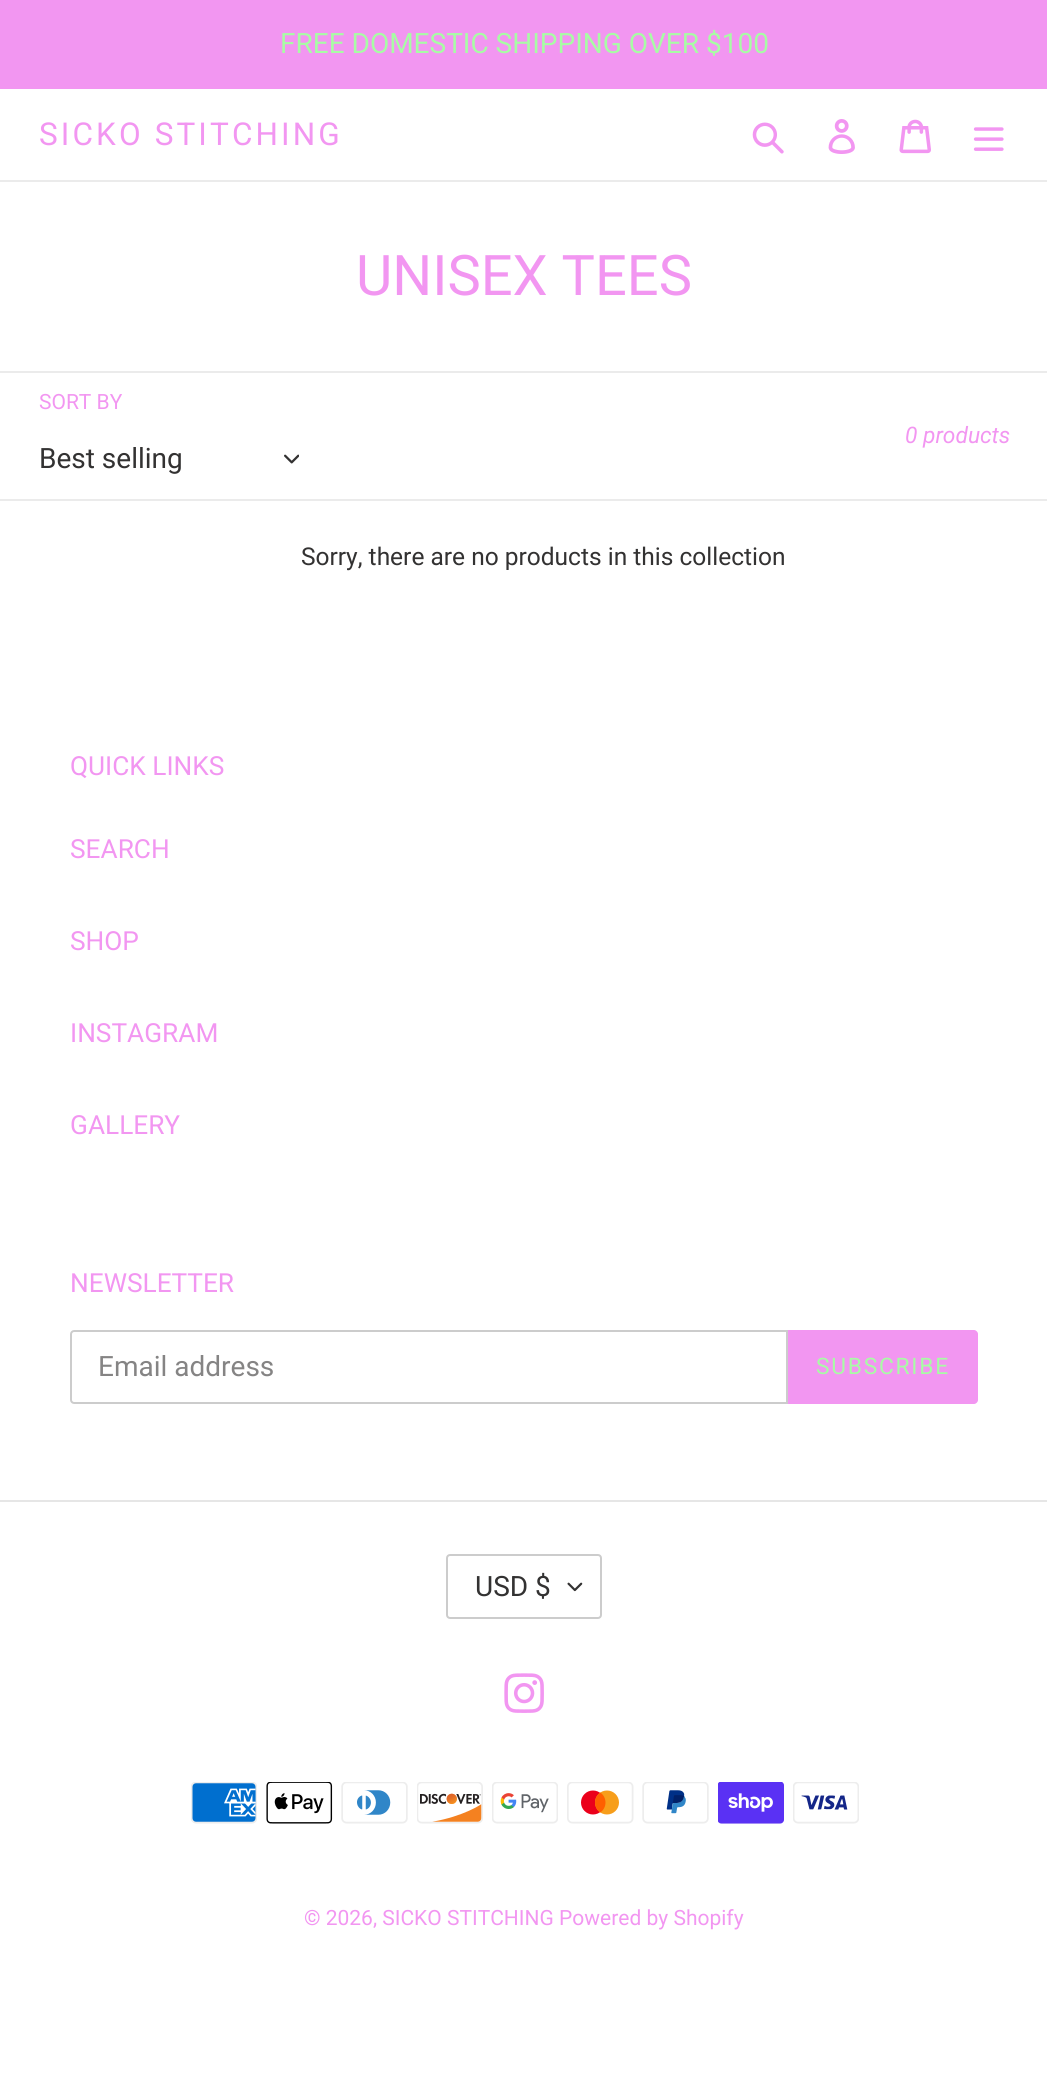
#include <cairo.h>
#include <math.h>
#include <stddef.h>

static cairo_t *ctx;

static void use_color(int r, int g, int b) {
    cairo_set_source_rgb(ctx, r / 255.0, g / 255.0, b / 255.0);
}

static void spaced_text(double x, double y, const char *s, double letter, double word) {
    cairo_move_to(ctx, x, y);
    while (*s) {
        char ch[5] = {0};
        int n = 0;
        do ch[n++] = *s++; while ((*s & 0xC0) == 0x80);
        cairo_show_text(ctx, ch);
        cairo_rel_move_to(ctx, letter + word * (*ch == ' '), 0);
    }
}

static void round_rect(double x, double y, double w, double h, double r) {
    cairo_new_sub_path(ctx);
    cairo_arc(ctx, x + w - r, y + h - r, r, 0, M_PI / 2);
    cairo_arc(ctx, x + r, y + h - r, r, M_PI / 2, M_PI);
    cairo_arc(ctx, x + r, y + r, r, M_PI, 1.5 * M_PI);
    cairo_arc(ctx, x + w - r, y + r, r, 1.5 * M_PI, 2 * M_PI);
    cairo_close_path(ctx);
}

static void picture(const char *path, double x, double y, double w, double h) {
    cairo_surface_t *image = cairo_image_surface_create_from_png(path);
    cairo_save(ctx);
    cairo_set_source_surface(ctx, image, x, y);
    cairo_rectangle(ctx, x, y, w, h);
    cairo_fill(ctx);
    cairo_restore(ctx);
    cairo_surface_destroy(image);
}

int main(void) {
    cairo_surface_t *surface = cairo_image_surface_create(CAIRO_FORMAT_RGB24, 1047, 2078);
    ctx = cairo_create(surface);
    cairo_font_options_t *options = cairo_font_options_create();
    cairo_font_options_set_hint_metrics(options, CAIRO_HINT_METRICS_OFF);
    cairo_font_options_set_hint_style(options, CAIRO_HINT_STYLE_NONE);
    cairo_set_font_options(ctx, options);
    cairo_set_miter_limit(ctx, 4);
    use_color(255, 255, 255);
    cairo_paint(ctx);
    use_color(242, 150, 241);
    cairo_rectangle(ctx, 0, 0, 1047, 89);
    cairo_fill(ctx);
    cairo_select_font_face(ctx, "Roboto", CAIRO_FONT_SLANT_NORMAL, CAIRO_FONT_WEIGHT_NORMAL);
    cairo_set_font_size(ctx, 28);
    use_color(168, 252, 165);
    cairo_move_to(ctx, 280, 53);
    cairo_show_text(ctx, "FREE DOMESTIC SHIPPING OVER $100");
    use_color(235, 235, 235);
    cairo_rectangle(ctx, 0, 180, 1047, 2);
    cairo_fill(ctx);
    cairo_set_font_size(ctx, 31.5);
    use_color(242, 150, 241);
    spaced_text(39, 145, "SICKO STITCHING", 3.1, 0);
    picture("img1.png", 752, 122, 32, 32);
    picture("img2.png", 828, 119, 27, 35);
    picture("img3.png", 899, 119, 32, 35);
    picture("img4.png", 973, 127, 31, 24);
    cairo_set_font_size(ctx, 56);
    cairo_move_to(ctx, 356, 295);
    cairo_show_text(ctx, "UNISEX TEES");
    use_color(235, 235, 235);
    cairo_rectangle(ctx, 0, 371, 1047, 2);
    cairo_fill(ctx);
    cairo_rectangle(ctx, 0, 499, 1047, 2);
    cairo_fill(ctx);
    cairo_set_font_size(ctx, 21);
    use_color(242, 150, 241);
    cairo_move_to(ctx, 39, 409);
    cairo_show_text(ctx, "SORT BY");
    cairo_set_font_size(ctx, 28);
    use_color(51, 50, 50);
    cairo_move_to(ctx, 39, 468);
    cairo_show_text(ctx, "Best selling");
    picture("img5.png", 284, 454, 15, 10);
    cairo_select_font_face(ctx, "Roboto", CAIRO_FONT_SLANT_ITALIC, CAIRO_FONT_WEIGHT_NORMAL);
    cairo_set_font_size(ctx, 22.75);
    use_color(242, 150, 241);
    cairo_move_to(ctx, 905, 443);
    cairo_show_text(ctx, "0 products");
    cairo_select_font_face(ctx, "Roboto", CAIRO_FONT_SLANT_NORMAL, CAIRO_FONT_WEIGHT_NORMAL);
    cairo_set_font_size(ctx, 24.5);
    use_color(51, 50, 50);
    cairo_move_to(ctx, 301, 565);
    cairo_show_text(ctx, "Sorry, there are no products in this collection");
    cairo_set_font_size(ctx, 26.25);
    use_color(242, 150, 241);
    cairo_move_to(ctx, 70, 775);
    cairo_show_text(ctx, "QUICK LINKS");
    cairo_move_to(ctx, 70, 858);
    cairo_show_text(ctx, "SEARCH");
    cairo_move_to(ctx, 70, 950);
    cairo_show_text(ctx, "SHOP");
    cairo_move_to(ctx, 70, 1042);
    cairo_show_text(ctx, "INSTAGRAM");
    cairo_move_to(ctx, 70, 1134);
    cairo_show_text(ctx, "GALLERY");
    cairo_move_to(ctx, 70, 1292);
    cairo_show_text(ctx, "NEWSLETTER");
    cairo_new_path(ctx);
    cairo_move_to(ctx, 74, 1331);
    cairo_line_to(ctx, 787, 1331);
    cairo_line_to(ctx, 787, 1403);
    cairo_line_to(ctx, 74, 1403);
    cairo_curve_to(ctx, 72.5, 1403, 71, 1401.5, 71, 1400);
    cairo_line_to(ctx, 71, 1334);
    cairo_curve_to(ctx, 71, 1332.5, 72.5, 1331, 74, 1331);
    cairo_close_path(ctx);
    use_color(204, 204, 204);
    cairo_stroke(ctx);
    cairo_set_font_size(ctx, 28);
    use_color(133, 132, 132);
    cairo_move_to(ctx, 98, 1376);
    cairo_show_text(ctx, "Email address");
    use_color(242, 150, 241);
    cairo_new_path(ctx);
    cairo_move_to(ctx, 788, 1330);
    cairo_line_to(ctx, 974, 1330);
    cairo_curve_to(ctx, 976, 1330, 978, 1332, 978, 1334);
    cairo_line_to(ctx, 978, 1400);
    cairo_curve_to(ctx, 978, 1402, 976, 1404, 974, 1404);
    cairo_line_to(ctx, 788, 1404);
    cairo_close_path(ctx);
    cairo_fill(ctx);
    cairo_set_font_size(ctx, 22.75);
    use_color(168, 252, 165);
    spaced_text(816, 1374, "SUBSCRIBE", 1.75, 0);
    use_color(230, 230, 230);
    cairo_rectangle(ctx, 0, 1500, 1047, 2);
    cairo_fill(ctx);
    picture("img6.png", 567, 1582, 16, 10);
    round_rect(447, 1555, 154, 63, 3);
    use_color(204, 204, 204);
    cairo_stroke(ctx);
    cairo_set_font_size(ctx, 28);
    use_color(51, 50, 50);
    cairo_move_to(ctx, 475, 1596);
    cairo_show_text(ctx, "USD $");
    picture("img7.png", 504, 1673, 40, 40);
    picture("img8.png", 191, 1782, 66, 42);
    picture("img9.png", 266, 1782, 67, 42);
    picture("img10.png", 341, 1782, 67, 42);
    picture("img11.png", 417, 1782, 66, 42);
    picture("img12.png", 492, 1782, 66, 42);
    picture("img13.png", 567, 1782, 67, 42);
    picture("img14.png", 642, 1782, 67, 42);
    picture("img15.png", 718, 1782, 66, 42);
    picture("img16.png", 793, 1782, 66, 42);
    cairo_set_font_size(ctx, 21);
    use_color(242, 150, 241);
    cairo_move_to(ctx, 304, 1925);
    cairo_show_text(ctx, "© 2026, SICKO STITCHING Powered by Shopify");
    cairo_surface_write_to_png(surface, "result.png");
    cairo_font_options_destroy(options);
    cairo_destroy(ctx);
    cairo_surface_destroy(surface);
    return 0;
}
